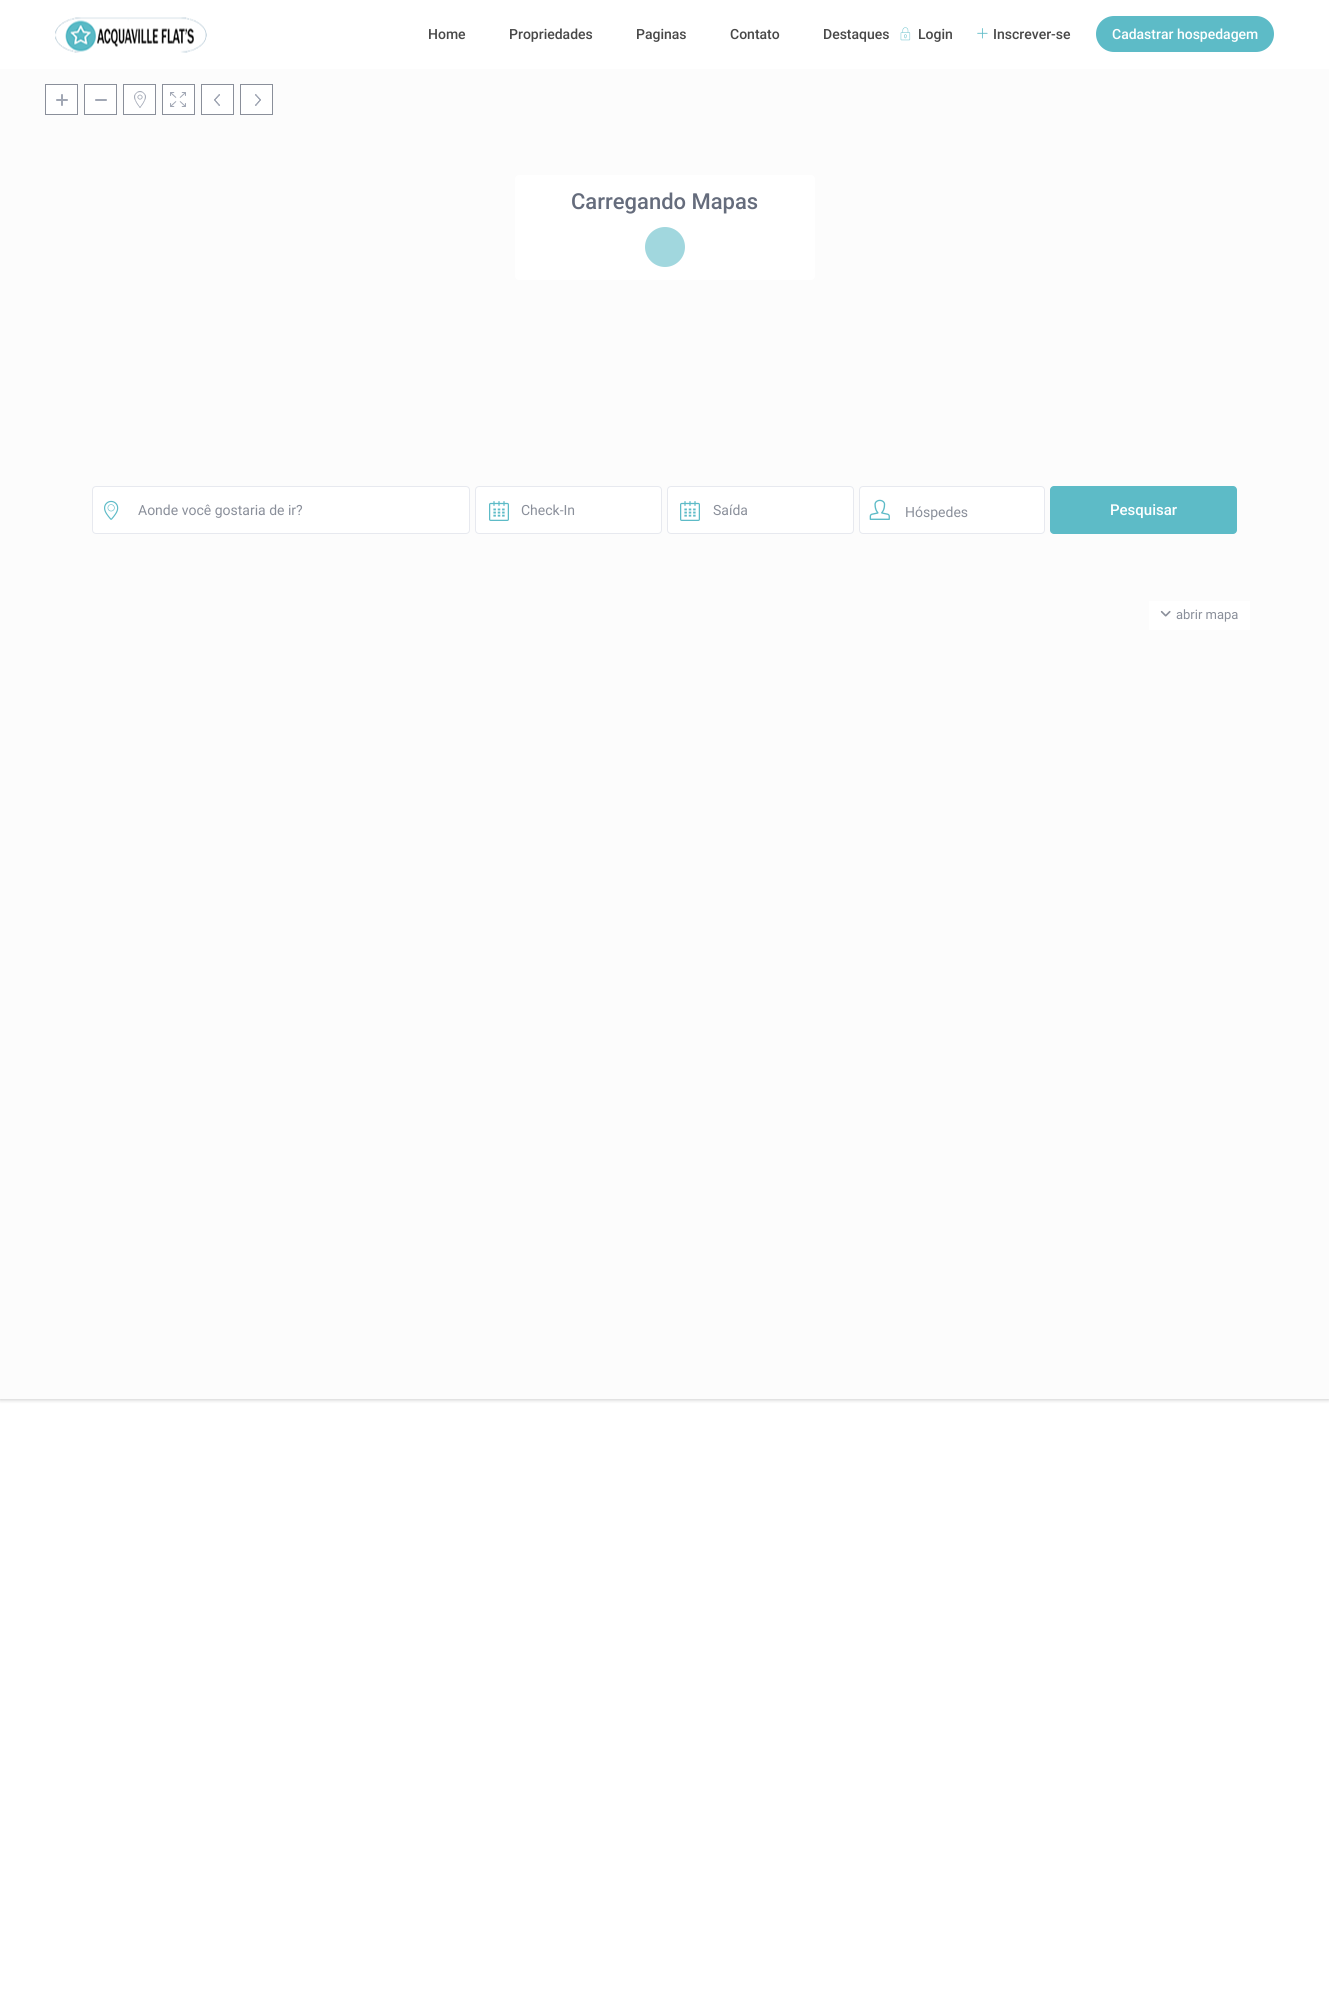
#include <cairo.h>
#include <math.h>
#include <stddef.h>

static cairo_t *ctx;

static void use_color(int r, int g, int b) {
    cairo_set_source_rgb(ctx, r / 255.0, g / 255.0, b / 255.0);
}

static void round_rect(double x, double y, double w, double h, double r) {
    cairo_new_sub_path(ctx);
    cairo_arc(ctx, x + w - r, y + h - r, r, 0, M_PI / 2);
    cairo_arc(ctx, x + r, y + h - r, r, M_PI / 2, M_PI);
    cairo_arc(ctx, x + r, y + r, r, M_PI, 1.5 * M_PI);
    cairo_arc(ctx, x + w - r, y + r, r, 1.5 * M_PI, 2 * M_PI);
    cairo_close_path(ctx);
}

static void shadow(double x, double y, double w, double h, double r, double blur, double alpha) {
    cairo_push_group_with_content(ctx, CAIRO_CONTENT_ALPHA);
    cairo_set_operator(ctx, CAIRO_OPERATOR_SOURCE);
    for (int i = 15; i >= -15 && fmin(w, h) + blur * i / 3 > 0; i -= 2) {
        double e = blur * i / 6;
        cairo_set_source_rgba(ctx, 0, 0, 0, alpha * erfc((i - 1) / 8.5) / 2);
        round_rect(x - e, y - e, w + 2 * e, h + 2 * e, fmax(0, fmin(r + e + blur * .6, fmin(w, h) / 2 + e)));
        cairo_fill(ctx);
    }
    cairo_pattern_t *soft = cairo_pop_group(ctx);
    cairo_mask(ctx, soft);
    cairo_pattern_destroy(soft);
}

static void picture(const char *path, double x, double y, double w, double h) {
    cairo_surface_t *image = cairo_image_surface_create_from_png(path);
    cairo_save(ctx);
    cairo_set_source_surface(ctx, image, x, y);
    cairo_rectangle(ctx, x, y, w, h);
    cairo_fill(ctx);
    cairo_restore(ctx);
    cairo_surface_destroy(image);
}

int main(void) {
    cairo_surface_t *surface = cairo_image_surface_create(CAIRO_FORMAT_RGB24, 1329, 2003);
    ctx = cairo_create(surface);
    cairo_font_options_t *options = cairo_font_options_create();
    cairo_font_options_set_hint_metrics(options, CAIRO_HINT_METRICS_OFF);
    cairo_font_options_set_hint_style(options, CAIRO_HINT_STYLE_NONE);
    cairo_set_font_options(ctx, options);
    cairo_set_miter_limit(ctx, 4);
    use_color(255, 255, 255);
    cairo_paint(ctx);
    use_color(0, 0, 0);
    shadow(0, 1, 1329, 1399, 0, 2, 0.2);
    use_color(252, 252, 252);
    cairo_rectangle(ctx, 0, 69, 1329, 1330);
    cairo_fill(ctx);
    use_color(255, 255, 255);
    cairo_rectangle(ctx, 0, 0, 1329, 69);
    cairo_fill(ctx);
    picture("img1.png", 55, 17, 152, 36);
    cairo_select_font_face(ctx, "Roboto Medium", CAIRO_FONT_SLANT_NORMAL, CAIRO_FONT_WEIGHT_NORMAL);
    cairo_set_font_size(ctx, 14);
    use_color(72, 72, 72);
    cairo_move_to(ctx, 428, 39);
    cairo_show_text(ctx, "Home");
    cairo_move_to(ctx, 509, 39);
    cairo_show_text(ctx, "Propriedades");
    cairo_move_to(ctx, 636, 39);
    cairo_show_text(ctx, "Paginas");
    cairo_move_to(ctx, 730, 39);
    cairo_show_text(ctx, "Contato");
    cairo_move_to(ctx, 823, 39);
    cairo_show_text(ctx, "Destaques");
    picture("img2.png", 900, 27, 11, 14);
    cairo_move_to(ctx, 918, 39);
    cairo_show_text(ctx, "Login");
    picture("img3.png", 977, 28, 11, 11);
    cairo_move_to(ctx, 993, 39);
    cairo_show_text(ctx, "Inscrever-se");
    use_color(93, 187, 199);
    round_rect(1096, 16, 178, 36, 18);
    cairo_fill(ctx);
    use_color(255, 255, 255);
    cairo_move_to(ctx, 1112, 39);
    cairo_show_text(ctx, "Cadastrar hospedagem");
    cairo_rectangle(ctx, 46, 85, 31, 29);
    cairo_fill(ctx);
    picture("img4.png", 56, 94, 12, 12);
    cairo_rectangle(ctx, 45.5, 84.5, 32, 30);
    use_color(138, 143, 154);
    cairo_set_line_width(ctx, 1);
    cairo_stroke(ctx);
    use_color(255, 255, 255);
    cairo_rectangle(ctx, 85, 85, 31, 29);
    cairo_fill(ctx);
    picture("img5.png", 95, 99, 12, 2);
    cairo_rectangle(ctx, 84.5, 84.5, 32, 30);
    use_color(138, 143, 154);
    cairo_stroke(ctx);
    use_color(255, 255, 255);
    cairo_rectangle(ctx, 124, 85, 31, 29);
    cairo_fill(ctx);
    picture("img6.png", 134, 91, 12, 17);
    cairo_rectangle(ctx, 123.5, 84.5, 32, 30);
    use_color(138, 143, 154);
    cairo_stroke(ctx);
    use_color(255, 255, 255);
    cairo_rectangle(ctx, 163, 85, 31, 29);
    cairo_fill(ctx);
    picture("img7.png", 170, 92, 16, 15);
    cairo_rectangle(ctx, 162.5, 84.5, 32, 30);
    use_color(138, 143, 154);
    cairo_stroke(ctx);
    use_color(255, 255, 255);
    cairo_rectangle(ctx, 202, 85, 31, 29);
    cairo_fill(ctx);
    picture("img8.png", 214, 94, 6, 12);
    cairo_rectangle(ctx, 201.5, 84.5, 32, 30);
    use_color(138, 143, 154);
    cairo_stroke(ctx);
    use_color(255, 255, 255);
    cairo_rectangle(ctx, 241, 85, 31, 29);
    cairo_fill(ctx);
    picture("img9.png", 255, 94, 6, 12);
    cairo_rectangle(ctx, 240.5, 84.5, 32, 30);
    use_color(138, 143, 154);
    cairo_stroke(ctx);
    use_color(255, 255, 255);
    round_rect(515, 175, 300, 105, 4);
    cairo_fill(ctx);
    cairo_set_font_size(ctx, 22);
    use_color(101, 108, 124);
    cairo_move_to(ctx, 571, 209);
    cairo_show_text(ctx, "Carregando Mapas");
    use_color(161, 215, 222);
    cairo_new_path(ctx);
    cairo_arc(ctx, 665, 247, 20, 0, 2 * M_PI);
    cairo_fill(ctx);
    use_color(255, 255, 255);
    cairo_rectangle(ctx, 1149, 601, 101, 29);
    cairo_fill(ctx);
    picture("img10.png", 1160, 610, 11, 7);
    cairo_select_font_face(ctx, "Roboto", CAIRO_FONT_SLANT_NORMAL, CAIRO_FONT_WEIGHT_NORMAL);
    cairo_set_font_size(ctx, 13);
    use_color(138, 143, 154);
    cairo_move_to(ctx, 1176, 619);
    cairo_show_text(ctx, "abrir mapa");
    use_color(255, 255, 255);
    round_rect(92.5, 486.5, 377, 47, 3.5);
    cairo_fill_preserve(ctx);
    use_color(231, 233, 239);
    cairo_stroke(ctx);
    picture("img11.png", 104, 500, 15, 20);
    cairo_set_font_size(ctx, 14);
    use_color(138, 143, 154);
    cairo_move_to(ctx, 138, 515);
    cairo_show_text(ctx, "Aonde você gostaria de ir?");
    use_color(255, 255, 255);
    round_rect(475.5, 486.5, 186, 47, 3.5);
    cairo_fill_preserve(ctx);
    use_color(231, 233, 239);
    cairo_stroke(ctx);
    picture("img12.png", 489, 501, 20, 20);
    use_color(138, 143, 154);
    cairo_move_to(ctx, 521, 515);
    cairo_show_text(ctx, "Check-In");
    use_color(255, 255, 255);
    round_rect(667.5, 486.5, 186, 47, 3.5);
    cairo_fill_preserve(ctx);
    use_color(231, 233, 239);
    cairo_stroke(ctx);
    picture("img12.png", 680, 501, 20, 20);
    use_color(138, 143, 154);
    cairo_move_to(ctx, 713, 515);
    cairo_show_text(ctx, "Saída");
    use_color(255, 255, 255);
    round_rect(859.5, 486.5, 185, 47, 3.5);
    cairo_fill_preserve(ctx);
    use_color(231, 233, 239);
    cairo_stroke(ctx);
    picture("img13.png", 869, 499, 21, 21);
    use_color(138, 143, 154);
    cairo_move_to(ctx, 905, 517);
    cairo_show_text(ctx, "Hóspedes");
    use_color(93, 187, 199);
    round_rect(1050, 486, 187, 48, 4);
    cairo_fill(ctx);
    cairo_select_font_face(ctx, "Roboto Medium", CAIRO_FONT_SLANT_NORMAL, CAIRO_FONT_WEIGHT_NORMAL);
    cairo_set_font_size(ctx, 15);
    use_color(255, 255, 255);
    cairo_move_to(ctx, 1110, 515);
    cairo_show_text(ctx, "Pesquisar");
    cairo_surface_write_to_png(surface, "result.png");
    cairo_font_options_destroy(options);
    cairo_destroy(ctx);
    cairo_surface_destroy(surface);
    return 0;
}
